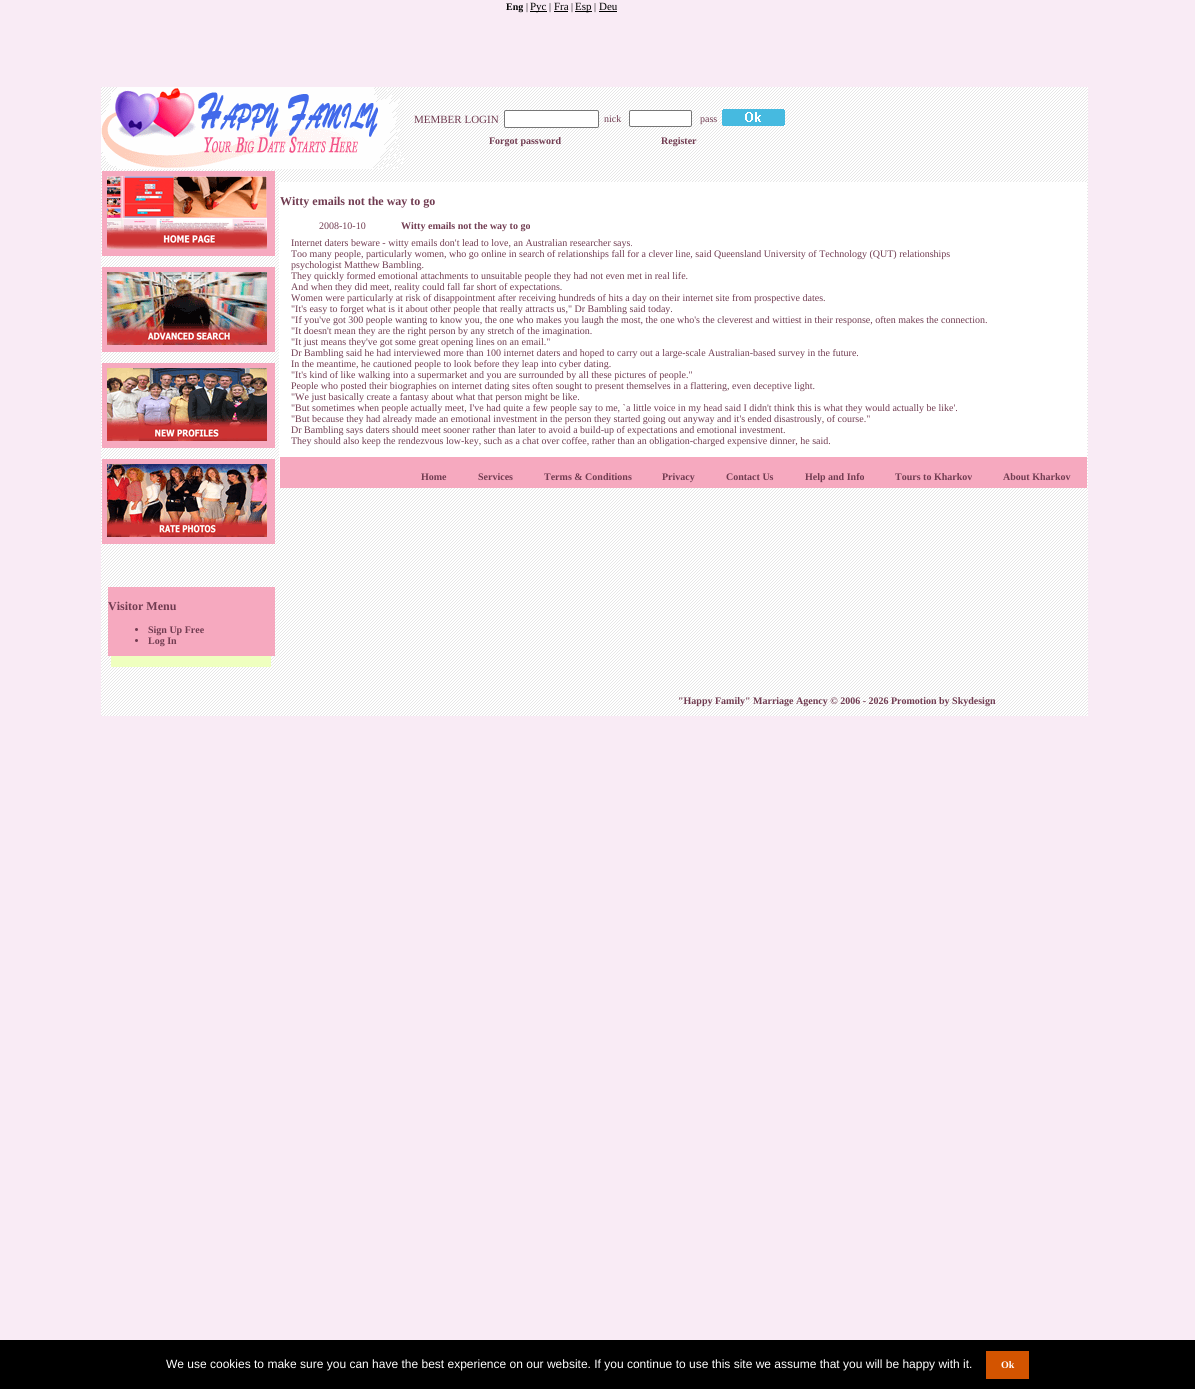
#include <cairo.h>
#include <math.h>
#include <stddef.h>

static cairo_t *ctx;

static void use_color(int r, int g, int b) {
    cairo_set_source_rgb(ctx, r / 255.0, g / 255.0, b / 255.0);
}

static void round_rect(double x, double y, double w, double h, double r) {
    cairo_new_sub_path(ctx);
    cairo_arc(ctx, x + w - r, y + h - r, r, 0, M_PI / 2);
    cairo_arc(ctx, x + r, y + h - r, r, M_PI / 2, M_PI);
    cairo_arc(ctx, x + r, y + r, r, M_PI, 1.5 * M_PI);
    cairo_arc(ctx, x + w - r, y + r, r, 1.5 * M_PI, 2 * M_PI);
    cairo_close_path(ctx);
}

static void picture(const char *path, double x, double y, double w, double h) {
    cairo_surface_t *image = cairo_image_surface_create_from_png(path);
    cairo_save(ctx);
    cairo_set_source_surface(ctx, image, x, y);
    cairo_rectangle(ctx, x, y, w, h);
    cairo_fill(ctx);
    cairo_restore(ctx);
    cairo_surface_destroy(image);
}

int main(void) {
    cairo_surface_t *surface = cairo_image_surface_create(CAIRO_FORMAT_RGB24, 1195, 1389);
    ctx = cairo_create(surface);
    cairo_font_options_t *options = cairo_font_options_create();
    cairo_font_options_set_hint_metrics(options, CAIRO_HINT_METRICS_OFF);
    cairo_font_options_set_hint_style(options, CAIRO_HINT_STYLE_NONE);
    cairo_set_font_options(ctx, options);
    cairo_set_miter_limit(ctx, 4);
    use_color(249, 235, 245);
    cairo_paint(ctx);
    cairo_select_font_face(ctx, "Liberation Serif", CAIRO_FONT_SLANT_NORMAL, CAIRO_FONT_WEIGHT_BOLD);
    cairo_set_font_size(ctx, 10);
    use_color(0, 0, 0);
    cairo_move_to(ctx, 506, 10);
    cairo_show_text(ctx, "Eng");
    cairo_select_font_face(ctx, "Liberation Serif", CAIRO_FONT_SLANT_NORMAL, CAIRO_FONT_WEIGHT_NORMAL);
    cairo_move_to(ctx, 526, 10);
    cairo_show_text(ctx, "|");
    cairo_rectangle(ctx, 530, 11, 17, 1);
    cairo_fill(ctx);
    cairo_set_font_size(ctx, 11);
    cairo_move_to(ctx, 530, 10);
    cairo_show_text(ctx, "Рус");
    cairo_set_font_size(ctx, 10);
    cairo_move_to(ctx, 549, 10);
    cairo_show_text(ctx, "|");
    cairo_set_font_size(ctx, 11);
    cairo_move_to(ctx, 554, 10);
    cairo_show_text(ctx, "Fra");
    cairo_rectangle(ctx, 554, 11, 14, 1);
    cairo_fill(ctx);
    cairo_set_font_size(ctx, 10);
    cairo_move_to(ctx, 571, 10);
    cairo_show_text(ctx, "|");
    cairo_rectangle(ctx, 575, 11, 17, 1);
    cairo_fill(ctx);
    cairo_set_font_size(ctx, 11);
    cairo_move_to(ctx, 575, 10);
    cairo_show_text(ctx, "Esp");
    cairo_set_font_size(ctx, 10);
    cairo_move_to(ctx, 594, 10);
    cairo_show_text(ctx, "|");
    cairo_set_font_size(ctx, 11);
    cairo_move_to(ctx, 599, 10);
    cairo_show_text(ctx, "Deu");
    cairo_rectangle(ctx, 599, 11, 18, 1);
    cairo_fill(ctx);
    picture("img1.png", 101, 87, 987, 629);
    picture("img2.png", 101, 87, 303, 82);
    use_color(113, 60, 81);
    cairo_move_to(ctx, 414, 123);
    cairo_show_text(ctx, "MEMBER LOGIN");
    use_color(255, 255, 255);
    round_rect(504.5, 110.5, 94, 17, 1.5);
    cairo_fill_preserve(ctx);
    use_color(118, 118, 118);
    cairo_set_line_width(ctx, 1);
    cairo_stroke(ctx);
    cairo_set_font_size(ctx, 10);
    use_color(113, 60, 81);
    cairo_move_to(ctx, 604, 122);
    cairo_show_text(ctx, "nick");
    use_color(255, 255, 255);
    round_rect(629.5, 110.5, 62, 16, 1.5);
    cairo_fill_preserve(ctx);
    use_color(118, 118, 118);
    cairo_stroke(ctx);
    use_color(113, 60, 81);
    cairo_move_to(ctx, 700, 122);
    cairo_show_text(ctx, "pass");
    picture("img3.png", 722, 109, 63, 17);
    cairo_select_font_face(ctx, "Liberation Serif", CAIRO_FONT_SLANT_NORMAL, CAIRO_FONT_WEIGHT_BOLD);
    cairo_move_to(ctx, 489, 144);
    cairo_show_text(ctx, "Forgot password");
    cairo_move_to(ctx, 661, 144);
    cairo_show_text(ctx, "Register");
    use_color(255, 255, 255);
    cairo_rectangle(ctx, 279, 182, 808, 306);
    cairo_fill(ctx);
    cairo_set_font_size(ctx, 12);
    use_color(113, 60, 81);
    cairo_move_to(ctx, 280, 205);
    cairo_show_text(ctx, "Witty emails not the way to go");
    cairo_select_font_face(ctx, "Liberation Serif", CAIRO_FONT_SLANT_NORMAL, CAIRO_FONT_WEIGHT_NORMAL);
    cairo_set_font_size(ctx, 10);
    cairo_move_to(ctx, 319, 229);
    cairo_show_text(ctx, "2008-10-10");
    cairo_select_font_face(ctx, "Liberation Serif", CAIRO_FONT_SLANT_NORMAL, CAIRO_FONT_WEIGHT_BOLD);
    cairo_move_to(ctx, 401, 229);
    cairo_show_text(ctx, "Witty emails not the way to go");
    cairo_select_font_face(ctx, "Liberation Serif", CAIRO_FONT_SLANT_NORMAL, CAIRO_FONT_WEIGHT_NORMAL);
    cairo_move_to(ctx, 291, 246);
    cairo_show_text(ctx, "Internet daters beware - witty emails don't lead to love, an Australian researcher says.");
    cairo_move_to(ctx, 291, 257);
    cairo_show_text(ctx, "Too many people, particularly women, who go online in search of relationships fall for a clever line, said Queensland University of Technology (QUT) relationships");
    cairo_move_to(ctx, 291, 268);
    cairo_show_text(ctx, "psychologist Matthew Bambling.");
    cairo_move_to(ctx, 291, 279);
    cairo_show_text(ctx, "They quickly formed emotional attachments to unsuitable people they had not even met in real life.");
    cairo_move_to(ctx, 291, 290);
    cairo_show_text(ctx, "And when they did meet, reality could fall far short of expectations.");
    cairo_move_to(ctx, 291, 301);
    cairo_show_text(ctx, "Women were particularly at risk of disappointment after receiving hundreds of hits a day on their internet site from prospective dates.");
    cairo_move_to(ctx, 291, 312);
    cairo_show_text(ctx, "\"It's easy to forget what is it about other people that really attracts us,\" Dr Bambling said today.");
    cairo_move_to(ctx, 291, 323);
    cairo_show_text(ctx, "\"If you've got 300 people wanting to know you, the one who makes you laugh the most, the one who's the cleverest and wittiest in their response, often makes the connection.");
    cairo_move_to(ctx, 291, 334);
    cairo_show_text(ctx, "\"It doesn't mean they are the right person by any stretch of the imagination.");
    cairo_move_to(ctx, 291, 345);
    cairo_show_text(ctx, "\"It just means they've got some great opening lines on an email.\"");
    cairo_move_to(ctx, 291, 356);
    cairo_show_text(ctx, "Dr Bambling said he had interviewed more than 100 internet daters and hoped to carry out a large-scale Australian-based survey in the future.");
    cairo_move_to(ctx, 291, 367);
    cairo_show_text(ctx, "In the meantime, he cautioned people to look before they leap into cyber dating.");
    cairo_move_to(ctx, 291, 378);
    cairo_show_text(ctx, "\"It's kind of like walking into a supermarket and you are surrounded by all these pictures of people.\"");
    cairo_move_to(ctx, 291, 389);
    cairo_show_text(ctx, "People who posted their biographies on internet dating sites often sought to present themselves in a flattering, even deceptive light.");
    cairo_move_to(ctx, 291, 400);
    cairo_show_text(ctx, "\"We just basically create a fantasy about what that person might be like.");
    cairo_move_to(ctx, 291, 411);
    cairo_show_text(ctx, "\"But sometimes when people actually meet, I've had quite a few people say to me, `a little voice in my head said I didn't think this is what they would actually be like'.");
    cairo_move_to(ctx, 291, 422);
    cairo_show_text(ctx, "\"But because they had already made an emotional investment in the person they started going out anyway and it's ended disastrously, of course.\"");
    cairo_move_to(ctx, 291, 433);
    cairo_show_text(ctx, "Dr Bambling says daters should meet sooner rather than later to avoid a build-up of expectations and emotional investment.");
    cairo_move_to(ctx, 291, 444);
    cairo_show_text(ctx, "They should also keep the rendezvous low-key, such as a chat over coffee, rather than an obligation-charged expensive dinner, he said.");
    use_color(246, 169, 191);
    cairo_rectangle(ctx, 280, 457, 807, 31);
    cairo_fill(ctx);
    cairo_select_font_face(ctx, "Liberation Serif", CAIRO_FONT_SLANT_NORMAL, CAIRO_FONT_WEIGHT_BOLD);
    use_color(113, 60, 81);
    cairo_move_to(ctx, 421, 480);
    cairo_show_text(ctx, "Home");
    cairo_move_to(ctx, 478, 480);
    cairo_show_text(ctx, "Services");
    cairo_move_to(ctx, 544, 480);
    cairo_show_text(ctx, "Terms & Conditions");
    cairo_move_to(ctx, 662, 480);
    cairo_show_text(ctx, "Privacy");
    cairo_move_to(ctx, 726, 480);
    cairo_show_text(ctx, "Contact Us");
    cairo_move_to(ctx, 805, 480);
    cairo_show_text(ctx, "Help and Info");
    cairo_move_to(ctx, 895, 480);
    cairo_show_text(ctx, "Tours to Kharkov");
    cairo_move_to(ctx, 1003, 480);
    cairo_show_text(ctx, "About Kharkov");
    use_color(246, 169, 191);
    cairo_rectangle(ctx, 102, 171, 173, 85);
    cairo_fill(ctx);
    picture("img4.png", 107, 176, 160, 73);
    cairo_rectangle(ctx, 102, 267, 173, 85);
    cairo_fill(ctx);
    picture("img5.png", 107, 272, 160, 73);
    cairo_rectangle(ctx, 102, 363, 173, 85);
    cairo_fill(ctx);
    picture("img6.png", 107, 368, 160, 73);
    cairo_rectangle(ctx, 102, 459, 173, 85);
    cairo_fill(ctx);
    picture("img7.png", 107, 464, 160, 73);
    cairo_rectangle(ctx, 108, 587, 167, 69);
    cairo_fill(ctx);
    cairo_set_font_size(ctx, 12);
    use_color(113, 60, 81);
    cairo_move_to(ctx, 108, 610);
    cairo_show_text(ctx, "Visitor Menu");
    cairo_new_path(ctx);
    cairo_arc(ctx, 136.5, 629.5, 1.5, 0, 2 * M_PI);
    cairo_fill(ctx);
    cairo_set_font_size(ctx, 10);
    cairo_move_to(ctx, 148, 633);
    cairo_show_text(ctx, "Sign Up Free");
    cairo_new_path(ctx);
    cairo_arc(ctx, 136.5, 640.5, 1.5, 0, 2 * M_PI);
    cairo_fill(ctx);
    cairo_move_to(ctx, 148, 644);
    cairo_show_text(ctx, "Log In");
    use_color(239, 255, 191);
    cairo_rectangle(ctx, 111, 656, 160, 11);
    cairo_fill(ctx);
    use_color(113, 60, 81);
    cairo_move_to(ctx, 678, 704);
    cairo_show_text(ctx, "\"Happy Family\" Marriage Agency © 2006 - 2026 Promotion by Skydesign");
    use_color(0, 0, 0);
    cairo_rectangle(ctx, 0, 1340, 1195, 49);
    cairo_fill(ctx);
    cairo_select_font_face(ctx, "Liberation Sans", CAIRO_FONT_SLANT_NORMAL, CAIRO_FONT_WEIGHT_NORMAL);
    cairo_set_font_size(ctx, 12);
    use_color(255, 255, 255);
    cairo_move_to(ctx, 166, 1368);
    cairo_show_text(ctx, "We use cookies to make sure you can have the best experience on our website. If you continue to use this site we assume that you will be happy with it.");
    use_color(211, 84, 0);
    cairo_rectangle(ctx, 986, 1351, 43, 28);
    cairo_fill(ctx);
    cairo_select_font_face(ctx, "Liberation Serif", CAIRO_FONT_SLANT_NORMAL, CAIRO_FONT_WEIGHT_BOLD);
    cairo_set_font_size(ctx, 10);
    use_color(255, 255, 255);
    cairo_move_to(ctx, 1001, 1368);
    cairo_show_text(ctx, "Ok");
    cairo_surface_write_to_png(surface, "result.png");
    cairo_font_options_destroy(options);
    cairo_destroy(ctx);
    cairo_surface_destroy(surface);
    return 0;
}
